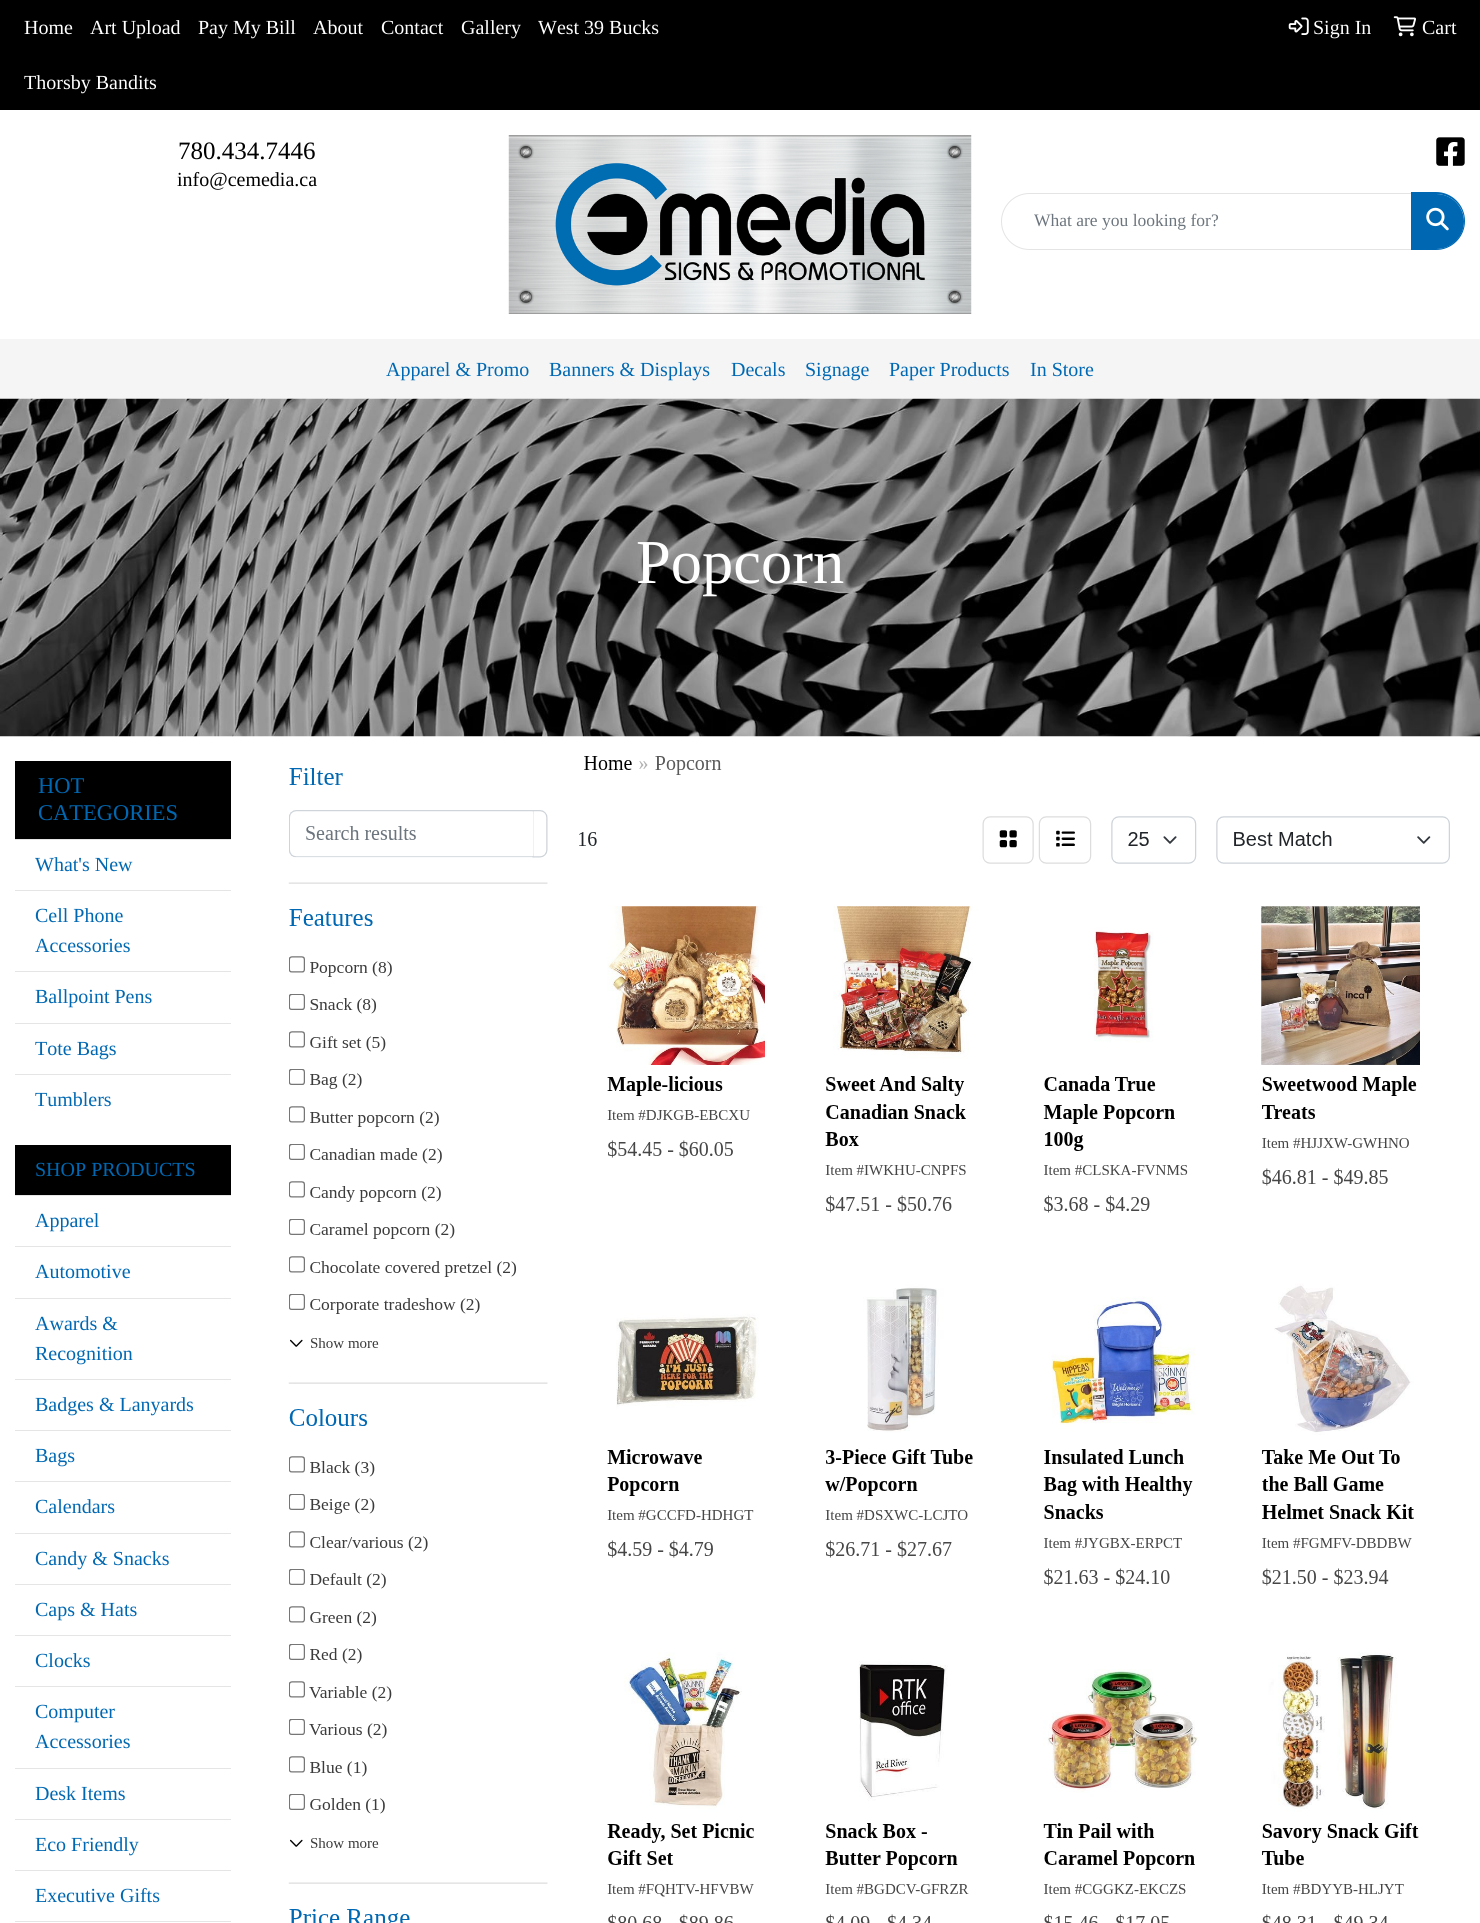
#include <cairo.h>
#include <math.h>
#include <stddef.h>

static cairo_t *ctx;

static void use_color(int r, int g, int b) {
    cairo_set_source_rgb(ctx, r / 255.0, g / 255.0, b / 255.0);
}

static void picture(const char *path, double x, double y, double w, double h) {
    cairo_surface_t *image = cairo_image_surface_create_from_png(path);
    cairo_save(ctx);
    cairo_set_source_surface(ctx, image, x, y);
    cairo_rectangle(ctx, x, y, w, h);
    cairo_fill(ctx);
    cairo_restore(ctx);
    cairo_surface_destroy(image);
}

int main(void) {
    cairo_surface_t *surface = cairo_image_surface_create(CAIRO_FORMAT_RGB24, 1480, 1923);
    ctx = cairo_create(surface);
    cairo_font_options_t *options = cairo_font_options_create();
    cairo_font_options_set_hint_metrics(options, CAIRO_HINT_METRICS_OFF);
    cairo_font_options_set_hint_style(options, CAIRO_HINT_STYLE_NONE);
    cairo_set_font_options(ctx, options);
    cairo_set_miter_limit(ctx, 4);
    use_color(255, 255, 255);
    cairo_paint(ctx);
    use_color(0, 0, 0);
    cairo_rectangle(ctx, 0, 0, 1480, 110);
    cairo_fill(ctx);
    cairo_select_font_face(ctx, "Liberation Serif", CAIRO_FONT_SLANT_NORMAL, CAIRO_FONT_WEIGHT_NORMAL);
    cairo_set_font_size(ctx, 20);
    use_color(255, 255, 255);
    cairo_move_to(ctx, 24, 34);
    cairo_show_text(ctx, "Home");
    cairo_move_to(ctx, 90, 34);
    cairo_show_text(ctx, "Art Upload");
    cairo_move_to(ctx, 198, 34);
    cairo_show_text(ctx, "Pay My Bill");
    cairo_move_to(ctx, 313, 34);
    cairo_show_text(ctx, "About");
    cairo_move_to(ctx, 381, 34);
    cairo_show_text(ctx, "Contact");
    cairo_move_to(ctx, 461, 34);
    cairo_show_text(ctx, "Gallery");
    cairo_move_to(ctx, 538, 34);
    cairo_show_text(ctx, "West 39 Bucks");
    cairo_move_to(ctx, 24, 89);
    cairo_show_text(ctx, "Thorsby Bandits");
    picture("img1.png", 1288, 17, 21, 18);
    cairo_move_to(ctx, 1313, 34);
    cairo_show_text(ctx, "Sign In");
    picture("img2.png", 1393, 16, 23, 21);
    cairo_move_to(ctx, 1422, 34);
    cairo_show_text(ctx, "Cart");
    cairo_set_font_size(ctx, 25);
    use_color(0, 0, 0);
    cairo_move_to(ctx, 178, 159);
    cairo_show_text(ctx, "780.434.7446");
    cairo_set_font_size(ctx, 20);
    cairo_move_to(ctx, 177, 186);
    cairo_show_text(ctx, "info@cemedia.ca");
    picture("img3.png", 508, 135, 464, 179);
    picture("img4.png", 1436, 137, 29, 29);
    cairo_new_path(ctx);
    cairo_move_to(ctx, 1029.5, 193.5);
    cairo_line_to(ctx, 1412.5, 193.5);
    cairo_line_to(ctx, 1412.5, 249.5);
    cairo_line_to(ctx, 1029.5, 249.5);
    cairo_curve_to(ctx, 1014, 249.5, 1001.5, 237, 1001.5, 221.5);
    cairo_curve_to(ctx, 1001.5, 206, 1014, 193.5, 1029.5, 193.5);
    cairo_close_path(ctx);
    use_color(228, 228, 228);
    cairo_set_line_width(ctx, 1);
    cairo_stroke(ctx);
    cairo_set_font_size(ctx, 17.5);
    use_color(108, 117, 125);
    cairo_move_to(ctx, 1034, 226);
    cairo_show_text(ctx, "What are you looking for?");
    use_color(0, 104, 178);
    cairo_new_path(ctx);
    cairo_move_to(ctx, 1411, 194);
    cairo_line_to(ctx, 1436.5, 194);
    cairo_curve_to(ctx, 1451.5, 194, 1464, 206.5, 1464, 221.5);
    cairo_curve_to(ctx, 1464, 236.5, 1451.5, 249, 1436.5, 249);
    cairo_line_to(ctx, 1411, 249);
    cairo_close_path(ctx);
    cairo_fill(ctx);
    cairo_set_fill_rule(ctx, CAIRO_FILL_RULE_EVEN_ODD);
    cairo_new_path(ctx);
    cairo_move_to(ctx, 1411, 192);
    cairo_line_to(ctx, 1436, 192);
    cairo_curve_to(ctx, 1452, 192, 1465, 205, 1465, 221);
    cairo_curve_to(ctx, 1465, 237, 1452, 250, 1436, 250);
    cairo_line_to(ctx, 1411, 250);
    cairo_close_path(ctx);
    cairo_move_to(ctx, 1411, 194);
    cairo_line_to(ctx, 1436, 194);
    cairo_curve_to(ctx, 1451, 194, 1464, 206, 1464, 221);
    cairo_curve_to(ctx, 1464, 236, 1451, 249, 1436, 249);
    cairo_line_to(ctx, 1411, 249);
    cairo_close_path(ctx);
    cairo_fill(ctx);
    picture("img5.png", 1426, 207, 23, 24);
    use_color(245, 245, 245);
    cairo_rectangle(ctx, 0, 339, 1480, 60);
    cairo_fill(ctx);
    cairo_set_font_size(ctx, 20);
    use_color(0, 104, 178);
    cairo_move_to(ctx, 386, 376);
    cairo_show_text(ctx, "Apparel & Promo");
    cairo_move_to(ctx, 549, 376);
    cairo_show_text(ctx, "Banners & Displays");
    cairo_move_to(ctx, 731, 376);
    cairo_show_text(ctx, "Decals");
    cairo_move_to(ctx, 805, 376);
    cairo_show_text(ctx, "Signage");
    cairo_move_to(ctx, 889, 376);
    cairo_show_text(ctx, "Paper Products");
    cairo_move_to(ctx, 1030, 376);
    cairo_show_text(ctx, "In Store");
    picture("img6.png", 0, 398, 1480, 339);
    cairo_set_font_size(ctx, 62.5);
    use_color(255, 255, 255);
    cairo_move_to(ctx, 636, 583);
    cairo_show_text(ctx, "Popcorn");
    use_color(0, 0, 0);
    cairo_rectangle(ctx, 15, 761, 216, 78);
    cairo_fill(ctx);
    cairo_set_font_size(ctx, 22.5);
    use_color(0, 104, 178);
    cairo_move_to(ctx, 38, 793);
    cairo_show_text(ctx, "HOT");
    cairo_move_to(ctx, 38, 820);
    cairo_show_text(ctx, "CATEGORIES");
    use_color(229, 229, 229);
    cairo_rectangle(ctx, 15, 839, 216, 1);
    cairo_fill(ctx);
    cairo_set_font_size(ctx, 20);
    use_color(0, 104, 178);
    cairo_move_to(ctx, 35, 871);
    cairo_show_text(ctx, "What's New");
    use_color(229, 229, 229);
    cairo_rectangle(ctx, 15, 890, 216, 1);
    cairo_fill(ctx);
    use_color(0, 104, 178);
    cairo_move_to(ctx, 35, 922);
    cairo_show_text(ctx, "Cell Phone");
    cairo_move_to(ctx, 35, 952);
    cairo_show_text(ctx, "Accessories");
    use_color(229, 229, 229);
    cairo_rectangle(ctx, 15, 971, 216, 1);
    cairo_fill(ctx);
    use_color(0, 104, 178);
    cairo_move_to(ctx, 35, 1003);
    cairo_show_text(ctx, "Ballpoint Pens");
    use_color(229, 229, 229);
    cairo_rectangle(ctx, 15, 1023, 216, 1);
    cairo_fill(ctx);
    use_color(0, 104, 178);
    cairo_move_to(ctx, 35, 1055);
    cairo_show_text(ctx, "Tote Bags");
    use_color(229, 229, 229);
    cairo_rectangle(ctx, 15, 1074, 216, 1);
    cairo_fill(ctx);
    use_color(0, 104, 178);
    cairo_move_to(ctx, 35, 1106);
    cairo_show_text(ctx, "Tumblers");
    use_color(0, 0, 0);
    cairo_rectangle(ctx, 15, 1145, 216, 50);
    cairo_fill(ctx);
    use_color(0, 104, 178);
    cairo_move_to(ctx, 35, 1176);
    cairo_show_text(ctx, "SHOP PRODUCTS");
    use_color(229, 229, 229);
    cairo_rectangle(ctx, 15, 1195, 216, 1);
    cairo_fill(ctx);
    use_color(0, 104, 178);
    cairo_move_to(ctx, 35, 1227);
    cairo_show_text(ctx, "Apparel");
    use_color(229, 229, 229);
    cairo_rectangle(ctx, 15, 1246, 216, 1);
    cairo_fill(ctx);
    use_color(0, 104, 178);
    cairo_move_to(ctx, 35, 1278);
    cairo_show_text(ctx, "Automotive");
    use_color(229, 229, 229);
    cairo_rectangle(ctx, 15, 1298, 216, 1);
    cairo_fill(ctx);
    use_color(0, 104, 178);
    cairo_move_to(ctx, 35, 1330);
    cairo_show_text(ctx, "Awards &");
    cairo_move_to(ctx, 35, 1360);
    cairo_show_text(ctx, "Recognition");
    use_color(229, 229, 229);
    cairo_rectangle(ctx, 15, 1379, 216, 1);
    cairo_fill(ctx);
    use_color(0, 104, 178);
    cairo_move_to(ctx, 35, 1411);
    cairo_show_text(ctx, "Badges & Lanyards");
    use_color(229, 229, 229);
    cairo_rectangle(ctx, 15, 1430, 216, 1);
    cairo_fill(ctx);
    use_color(0, 104, 178);
    cairo_move_to(ctx, 35, 1462);
    cairo_show_text(ctx, "Bags");
    use_color(229, 229, 229);
    cairo_rectangle(ctx, 15, 1481, 216, 1);
    cairo_fill(ctx);
    use_color(0, 104, 178);
    cairo_move_to(ctx, 35, 1513);
    cairo_show_text(ctx, "Calendars");
    use_color(229, 229, 229);
    cairo_rectangle(ctx, 15, 1533, 216, 1);
    cairo_fill(ctx);
    use_color(0, 104, 178);
    cairo_move_to(ctx, 35, 1565);
    cairo_show_text(ctx, "Candy & Snacks");
    use_color(229, 229, 229);
    cairo_rectangle(ctx, 15, 1584, 216, 1);
    cairo_fill(ctx);
    use_color(0, 104, 178);
    cairo_move_to(ctx, 35, 1616);
    cairo_show_text(ctx, "Caps & Hats");
    use_color(229, 229, 229);
    cairo_rectangle(ctx, 15, 1635, 216, 1);
    cairo_fill(ctx);
    use_color(0, 104, 178);
    cairo_move_to(ctx, 35, 1667);
    cairo_show_text(ctx, "Clocks");
    use_color(229, 229, 229);
    cairo_rectangle(ctx, 15, 1686, 216, 1);
    cairo_fill(ctx);
    use_color(0, 104, 178);
    cairo_move_to(ctx, 35, 1718);
    cairo_show_text(ctx, "Computer");
    cairo_move_to(ctx, 35, 1748);
    cairo_show_text(ctx, "Accessories");
    use_color(229, 229, 229);
    cairo_rectangle(ctx, 15, 1768, 216, 1);
    cairo_fill(ctx);
    use_color(0, 104, 178);
    cairo_move_to(ctx, 35, 1800);
    cairo_show_text(ctx, "Desk Items");
    use_color(229, 229, 229);
    cairo_rectangle(ctx, 15, 1819, 216, 1);
    cairo_fill(ctx);
    use_color(0, 104, 178);
    cairo_move_to(ctx, 35, 1851);
    cairo_show_text(ctx, "Eco Friendly");
    use_color(229, 229, 229);
    cairo_rectangle(ctx, 15, 1870, 216, 1);
    cairo_fill(ctx);
    use_color(0, 104, 178);
    cairo_move_to(ctx, 35, 1902);
    cairo_show_text(ctx, "Executive Gifts");
    use_color(229, 229, 229);
    cairo_rectangle(ctx, 15, 1921, 216, 1);
    cairo_fill(ctx);
    picture("img7.png", 288, 756, 1162, 1167);
    cairo_surface_write_to_png(surface, "result.png");
    cairo_font_options_destroy(options);
    cairo_destroy(ctx);
    cairo_surface_destroy(surface);
    return 0;
}
